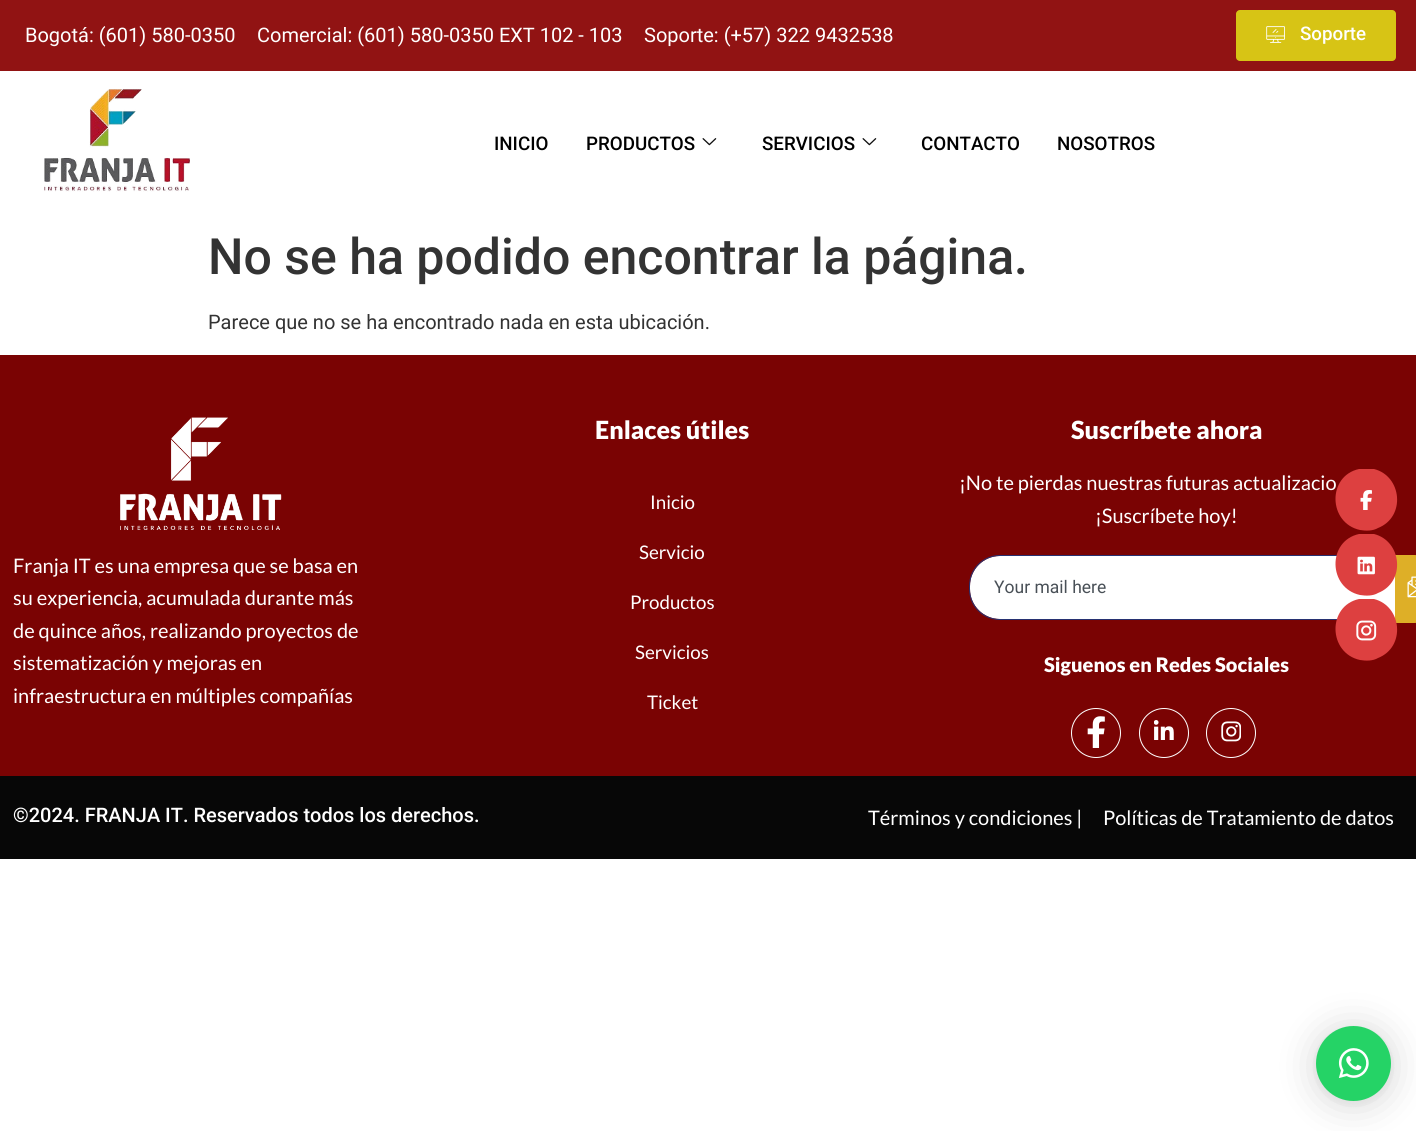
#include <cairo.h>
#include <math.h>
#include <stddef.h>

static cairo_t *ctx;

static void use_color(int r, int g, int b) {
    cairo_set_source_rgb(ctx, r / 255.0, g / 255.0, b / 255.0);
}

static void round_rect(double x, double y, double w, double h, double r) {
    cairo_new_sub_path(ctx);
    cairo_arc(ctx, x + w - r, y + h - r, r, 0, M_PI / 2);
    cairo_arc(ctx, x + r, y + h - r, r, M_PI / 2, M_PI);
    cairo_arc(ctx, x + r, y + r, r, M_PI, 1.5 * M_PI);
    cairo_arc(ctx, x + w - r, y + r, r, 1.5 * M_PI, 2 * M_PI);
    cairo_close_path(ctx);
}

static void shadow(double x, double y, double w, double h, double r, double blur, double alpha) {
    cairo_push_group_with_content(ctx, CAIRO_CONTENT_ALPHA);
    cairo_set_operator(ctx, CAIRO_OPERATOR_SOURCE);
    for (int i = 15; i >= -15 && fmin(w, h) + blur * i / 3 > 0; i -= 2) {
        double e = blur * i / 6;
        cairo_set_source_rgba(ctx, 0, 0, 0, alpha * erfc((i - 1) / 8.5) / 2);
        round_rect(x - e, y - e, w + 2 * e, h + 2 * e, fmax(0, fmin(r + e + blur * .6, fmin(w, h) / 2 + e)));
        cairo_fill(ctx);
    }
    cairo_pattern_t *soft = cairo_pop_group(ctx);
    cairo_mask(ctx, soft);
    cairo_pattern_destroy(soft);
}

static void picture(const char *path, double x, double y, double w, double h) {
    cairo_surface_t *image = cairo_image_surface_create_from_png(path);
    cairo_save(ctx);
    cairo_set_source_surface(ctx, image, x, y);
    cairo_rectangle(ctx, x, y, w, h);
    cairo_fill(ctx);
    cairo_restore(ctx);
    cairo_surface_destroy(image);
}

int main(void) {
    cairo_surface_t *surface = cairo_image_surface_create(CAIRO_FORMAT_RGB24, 1416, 1131);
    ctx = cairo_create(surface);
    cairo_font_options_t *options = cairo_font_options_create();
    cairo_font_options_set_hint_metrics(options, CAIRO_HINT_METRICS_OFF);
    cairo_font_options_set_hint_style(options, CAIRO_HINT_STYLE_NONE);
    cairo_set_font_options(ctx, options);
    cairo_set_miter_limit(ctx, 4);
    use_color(255, 255, 255);
    cairo_paint(ctx);
    use_color(145, 19, 19);
    cairo_rectangle(ctx, 0, 0, 1416, 71);
    cairo_fill(ctx);
    cairo_select_font_face(ctx, "Roboto", CAIRO_FONT_SLANT_NORMAL, CAIRO_FONT_WEIGHT_NORMAL);
    cairo_set_font_size(ctx, 20);
    use_color(255, 255, 255);
    cairo_move_to(ctx, 25, 42);
    cairo_show_text(ctx, "Bogotá: (601) 580-0350");
    cairo_move_to(ctx, 257, 42);
    cairo_show_text(ctx, "Comercial: (601) 580-0350 EXT 102 - 103");
    cairo_move_to(ctx, 644, 42);
    cairo_show_text(ctx, "Soporte: (+57) 322 9432538");
    use_color(215, 196, 21);
    round_rect(1236, 10, 160, 51, 4);
    cairo_fill(ctx);
    picture("img1.png", 1266, 26, 19, 17);
    cairo_select_font_face(ctx, "Roboto Medium", CAIRO_FONT_SLANT_NORMAL, CAIRO_FONT_WEIGHT_NORMAL);
    cairo_set_font_size(ctx, 18.75);
    use_color(255, 255, 255);
    cairo_move_to(ctx, 1300, 40);
    cairo_show_text(ctx, "Soporte");
    picture("img2.png", 44, 89, 146, 103);
    use_color(0, 0, 0);
    cairo_move_to(ctx, 494, 150);
    cairo_show_text(ctx, "INICIO");
    cairo_move_to(ctx, 586, 150);
    cairo_show_text(ctx, "PRODUCTOS");
    picture("img3.png", 702, 138, 15, 8);
    cairo_move_to(ctx, 762, 150);
    cairo_show_text(ctx, "SERVICIOS");
    picture("img3.png", 862, 138, 15, 8);
    cairo_move_to(ctx, 921, 150);
    cairo_show_text(ctx, "CONTACTO");
    cairo_move_to(ctx, 1057, 150);
    cairo_show_text(ctx, "NOSOTROS");
    cairo_set_font_size(ctx, 50);
    use_color(51, 51, 51);
    cairo_move_to(ctx, 208, 274);
    cairo_show_text(ctx, "No se ha podido encontrar la página.");
    cairo_select_font_face(ctx, "Roboto", CAIRO_FONT_SLANT_NORMAL, CAIRO_FONT_WEIGHT_NORMAL);
    cairo_set_font_size(ctx, 20);
    cairo_move_to(ctx, 208, 329);
    cairo_show_text(ctx, "Parece que no se ha encontrado nada en esta ubicación.");
    use_color(122, 3, 3);
    cairo_rectangle(ctx, 0, 355, 1416, 421);
    cairo_fill(ctx);
    picture("img4.png", 120, 417, 162, 113);
    cairo_select_font_face(ctx, "Lato", CAIRO_FONT_SLANT_NORMAL, CAIRO_FONT_WEIGHT_NORMAL);
    use_color(255, 255, 255);
    cairo_move_to(ctx, 13, 573);
    cairo_show_text(ctx, "Franja IT es una empresa que se basa en");
    cairo_move_to(ctx, 13, 605);
    cairo_show_text(ctx, "su experiencia, acumulada durante más");
    cairo_move_to(ctx, 13, 638);
    cairo_show_text(ctx, "de quince años, realizando proyectos de");
    cairo_move_to(ctx, 13, 670);
    cairo_show_text(ctx, "sistematización y mejoras en");
    cairo_move_to(ctx, 13, 703);
    cairo_show_text(ctx, "infraestructura en múltiples compañías");
    cairo_select_font_face(ctx, "Lato Black", CAIRO_FONT_SLANT_NORMAL, CAIRO_FONT_WEIGHT_NORMAL);
    cairo_set_font_size(ctx, 25);
    cairo_move_to(ctx, 595, 439);
    cairo_show_text(ctx, "Enlaces útiles");
    cairo_select_font_face(ctx, "Lato", CAIRO_FONT_SLANT_NORMAL, CAIRO_FONT_WEIGHT_NORMAL);
    cairo_set_font_size(ctx, 18.75);
    cairo_move_to(ctx, 650, 509);
    cairo_show_text(ctx, "Inicio");
    cairo_move_to(ctx, 639, 559);
    cairo_show_text(ctx, "Servicio");
    cairo_move_to(ctx, 630, 609);
    cairo_show_text(ctx, "Productos");
    cairo_move_to(ctx, 635, 659);
    cairo_show_text(ctx, "Servicios");
    cairo_move_to(ctx, 647, 709);
    cairo_show_text(ctx, "Ticket");
    cairo_select_font_face(ctx, "Lato Black", CAIRO_FONT_SLANT_NORMAL, CAIRO_FONT_WEIGHT_NORMAL);
    cairo_set_font_size(ctx, 25);
    cairo_move_to(ctx, 1071, 439);
    cairo_show_text(ctx, "Suscríbete ahora");
    cairo_select_font_face(ctx, "Lato", CAIRO_FONT_SLANT_NORMAL, CAIRO_FONT_WEIGHT_NORMAL);
    cairo_set_font_size(ctx, 20);
    cairo_move_to(ctx, 959, 490);
    cairo_show_text(ctx, "¡No te pierdas nuestras futuras actualizacio");
    cairo_move_to(ctx, 1095, 523);
    cairo_show_text(ctx, "¡Suscríbete hoy!");
    cairo_new_path(ctx);
    cairo_move_to(ctx, 1000, 556);
    cairo_line_to(ctx, 1396, 556);
    cairo_line_to(ctx, 1396, 619);
    cairo_line_to(ctx, 1000, 619);
    cairo_curve_to(ctx, 983.5, 619, 970, 605.5, 970, 589);
    cairo_line_to(ctx, 970, 586);
    cairo_curve_to(ctx, 970, 569.5, 983.5, 556, 1000, 556);
    cairo_close_path(ctx);
    cairo_fill(ctx);
    cairo_new_path(ctx);
    cairo_move_to(ctx, 1000, 555.5);
    cairo_line_to(ctx, 1397.5, 555.5);
    cairo_line_to(ctx, 1397.5, 619.5);
    cairo_line_to(ctx, 1000, 619.5);
    cairo_curve_to(ctx, 983, 619.5, 969.5, 606, 969.5, 589);
    cairo_line_to(ctx, 969.5, 586);
    cairo_curve_to(ctx, 969.5, 569, 983, 555.5, 1000, 555.5);
    cairo_close_path(ctx);
    use_color(39, 49, 113);
    cairo_set_line_width(ctx, 1);
    cairo_stroke(ctx);
    cairo_select_font_face(ctx, "Roboto", CAIRO_FONT_SLANT_NORMAL, CAIRO_FONT_WEIGHT_NORMAL);
    cairo_set_font_size(ctx, 17.5);
    use_color(73, 80, 87);
    cairo_move_to(ctx, 994, 593);
    cairo_show_text(ctx, "Your mail here");
    use_color(222, 175, 39);
    cairo_new_path(ctx);
    cairo_move_to(ctx, 1395, 555);
    cairo_line_to(ctx, 1414, 555);
    cairo_curve_to(ctx, 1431, 555, 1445, 569, 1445, 586);
    cairo_line_to(ctx, 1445, 592);
    cairo_curve_to(ctx, 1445, 609, 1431, 623, 1414, 623);
    cairo_line_to(ctx, 1395, 623);
    cairo_close_path(ctx);
    cairo_fill(ctx);
    picture("img5.png", 1407, 576, 9, 22);
    cairo_select_font_face(ctx, "Lato Black", CAIRO_FONT_SLANT_NORMAL, CAIRO_FONT_WEIGHT_NORMAL);
    cairo_set_font_size(ctx, 20);
    use_color(255, 255, 255);
    cairo_move_to(ctx, 1044, 672);
    cairo_show_text(ctx, "Siguenos en Redes Sociales");
    cairo_new_path(ctx);
    cairo_arc(ctx, 1096, 733, 24.5, 0, 2 * M_PI);
    cairo_stroke(ctx);
    picture("img6.png", 1087, 716, 18, 32);
    cairo_arc(ctx, 1164, 733, 24.5, 0, 2 * M_PI);
    cairo_stroke(ctx);
    picture("img7.png", 1154, 720, 20, 20);
    cairo_arc(ctx, 1231, 733, 24.5, 0, 2 * M_PI);
    cairo_stroke(ctx);
    picture("img8.png", 1221, 721, 20, 21);
    use_color(7, 7, 7);
    cairo_rectangle(ctx, 0, 776, 1416, 83);
    cairo_fill(ctx);
    cairo_select_font_face(ctx, "Roboto Medium", CAIRO_FONT_SLANT_NORMAL, CAIRO_FONT_WEIGHT_NORMAL);
    use_color(255, 255, 255);
    cairo_move_to(ctx, 13, 822);
    cairo_show_text(ctx, "©2024. FRANJA IT. Reservados todos los derechos.");
    cairo_select_font_face(ctx, "Lato", CAIRO_FONT_SLANT_NORMAL, CAIRO_FONT_WEIGHT_NORMAL);
    cairo_move_to(ctx, 868, 825);
    cairo_show_text(ctx, "Términos y condiciones |");
    cairo_move_to(ctx, 1103, 825);
    cairo_show_text(ctx, "Políticas de Tratamiento de datos");
    use_color(221, 64, 64);
    cairo_new_path(ctx);
    cairo_move_to(ctx, 1374, 469);
    cairo_curve_to(ctx, 1402, 476, 1406, 517, 1378, 528);
    cairo_curve_to(ctx, 1373, 531, 1366, 531, 1360, 530);
    cairo_curve_to(ctx, 1328, 523, 1327, 476, 1359, 469);
    cairo_close_path(ctx);
    cairo_fill(ctx);
    picture("img9.png", 1360, 490, 12, 20);
    cairo_new_path(ctx);
    cairo_move_to(ctx, 1374, 534);
    cairo_curve_to(ctx, 1402, 541, 1406, 582, 1378, 593);
    cairo_curve_to(ctx, 1373, 596, 1366, 596, 1360, 595);
    cairo_curve_to(ctx, 1328, 588, 1327, 541, 1359, 534);
    cairo_close_path(ctx);
    cairo_fill(ctx);
    picture("img10.png", 1357, 556, 18, 19);
    cairo_new_path(ctx);
    cairo_move_to(ctx, 1374, 599);
    cairo_curve_to(ctx, 1402, 606, 1406, 647, 1378, 658);
    cairo_curve_to(ctx, 1373, 661, 1366, 661, 1360, 660);
    cairo_curve_to(ctx, 1328, 653, 1327, 606, 1359, 599);
    cairo_close_path(ctx);
    cairo_fill(ctx);
    picture("img11.png", 1356, 620, 21, 21);
    use_color(0, 0, 0);
    shadow(1316, 1029, 75, 75, 37.5, 20, 0.16);
    shadow(1316, 1028, 75, 75, 37.5, 4, 0.06);
    use_color(37, 211, 102);
    cairo_arc(ctx, 1353.5, 1063.5, 37.5, 0, 2 * M_PI);
    cairo_fill(ctx);
    picture("img12.png", 1338, 1048, 31, 30);
    cairo_surface_write_to_png(surface, "result.png");
    cairo_font_options_destroy(options);
    cairo_destroy(ctx);
    cairo_surface_destroy(surface);
    return 0;
}
